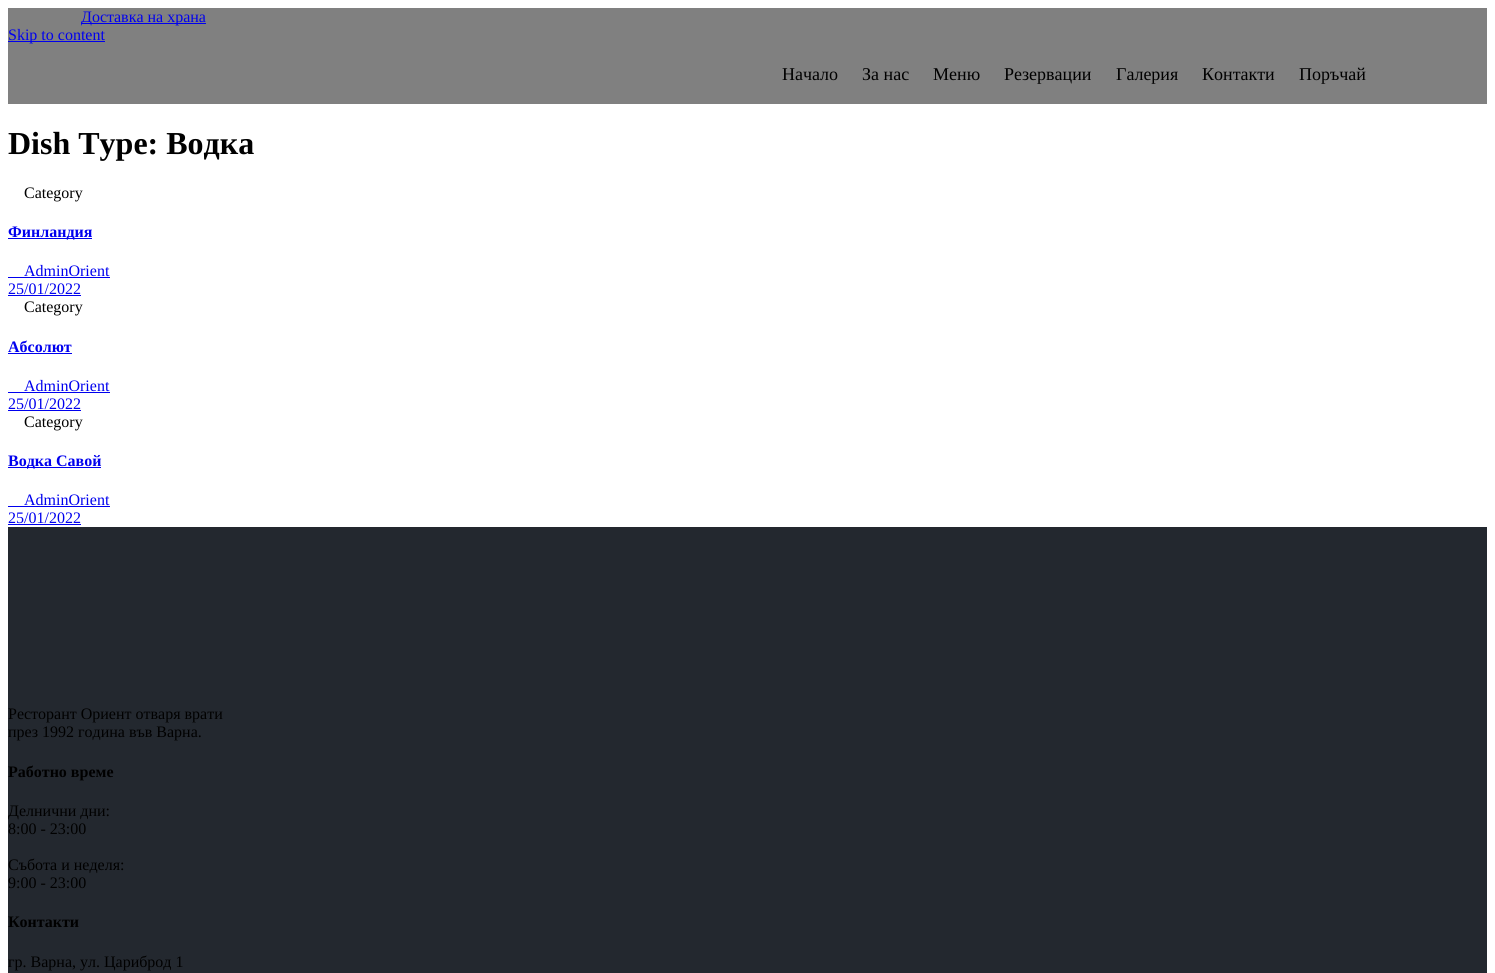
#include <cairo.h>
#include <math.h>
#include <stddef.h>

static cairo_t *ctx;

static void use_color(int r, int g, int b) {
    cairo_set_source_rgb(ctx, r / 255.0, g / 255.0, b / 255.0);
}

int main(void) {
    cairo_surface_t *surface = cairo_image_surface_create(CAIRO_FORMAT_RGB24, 1495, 973);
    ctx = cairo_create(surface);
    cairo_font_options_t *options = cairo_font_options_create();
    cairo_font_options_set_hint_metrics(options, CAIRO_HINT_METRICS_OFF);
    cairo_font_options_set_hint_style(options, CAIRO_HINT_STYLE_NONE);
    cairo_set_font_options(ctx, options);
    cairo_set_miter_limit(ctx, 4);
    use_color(255, 255, 255);
    cairo_paint(ctx);
    use_color(128, 128, 128);
    cairo_rectangle(ctx, 8, 8, 1479, 96);
    cairo_fill(ctx);
    use_color(0, 0, 238);
    cairo_rectangle(ctx, 81, 23, 125, 1);
    cairo_fill(ctx);
    cairo_select_font_face(ctx, "Liberation Serif", CAIRO_FONT_SLANT_NORMAL, CAIRO_FONT_WEIGHT_NORMAL);
    cairo_set_font_size(ctx, 16);
    cairo_move_to(ctx, 81, 22);
    cairo_show_text(ctx, "Доставка на храна");
    cairo_rectangle(ctx, 8, 41, 97, 1);
    cairo_fill(ctx);
    cairo_move_to(ctx, 8, 40);
    cairo_show_text(ctx, "Skip to content");
    cairo_set_font_size(ctx, 18);
    use_color(0, 0, 0);
    cairo_move_to(ctx, 782, 80);
    cairo_show_text(ctx, "Начало");
    cairo_move_to(ctx, 862, 80);
    cairo_show_text(ctx, "За нас");
    cairo_move_to(ctx, 933, 80);
    cairo_show_text(ctx, "Меню");
    cairo_move_to(ctx, 1004, 80);
    cairo_show_text(ctx, "Резервации");
    cairo_move_to(ctx, 1116, 80);
    cairo_show_text(ctx, "Галерия");
    cairo_move_to(ctx, 1202, 80);
    cairo_show_text(ctx, "Контакти");
    cairo_move_to(ctx, 1299, 80);
    cairo_show_text(ctx, "Поръчай");
    cairo_select_font_face(ctx, "Liberation Serif", CAIRO_FONT_SLANT_NORMAL, CAIRO_FONT_WEIGHT_BOLD);
    cairo_set_font_size(ctx, 32);
    cairo_move_to(ctx, 8, 154);
    cairo_show_text(ctx, "Dish Type: Водка");
    cairo_select_font_face(ctx, "Liberation Serif", CAIRO_FONT_SLANT_NORMAL, CAIRO_FONT_WEIGHT_NORMAL);
    cairo_set_font_size(ctx, 16);
    cairo_move_to(ctx, 24, 198);
    cairo_show_text(ctx, "Category");
    use_color(0, 0, 238);
    cairo_rectangle(ctx, 8, 238, 84, 1);
    cairo_fill(ctx);
    cairo_select_font_face(ctx, "Liberation Serif", CAIRO_FONT_SLANT_NORMAL, CAIRO_FONT_WEIGHT_BOLD);
    cairo_move_to(ctx, 8, 237);
    cairo_show_text(ctx, "Финландия");
    cairo_select_font_face(ctx, "Liberation Serif", CAIRO_FONT_SLANT_NORMAL, CAIRO_FONT_WEIGHT_NORMAL);
    cairo_move_to(ctx, 24, 276);
    cairo_show_text(ctx, "AdminOrient");
    cairo_rectangle(ctx, 8, 277, 102, 1);
    cairo_fill(ctx);
    cairo_move_to(ctx, 8, 294);
    cairo_show_text(ctx, "25/01/2022");
    cairo_rectangle(ctx, 8, 295, 73, 1);
    cairo_fill(ctx);
    use_color(0, 0, 0);
    cairo_move_to(ctx, 24, 312);
    cairo_show_text(ctx, "Category");
    cairo_select_font_face(ctx, "Liberation Serif", CAIRO_FONT_SLANT_NORMAL, CAIRO_FONT_WEIGHT_BOLD);
    use_color(0, 0, 238);
    cairo_move_to(ctx, 8, 352);
    cairo_show_text(ctx, "Абсолют");
    cairo_rectangle(ctx, 8, 353, 64, 1);
    cairo_fill(ctx);
    cairo_select_font_face(ctx, "Liberation Serif", CAIRO_FONT_SLANT_NORMAL, CAIRO_FONT_WEIGHT_NORMAL);
    cairo_move_to(ctx, 24, 391);
    cairo_show_text(ctx, "AdminOrient");
    cairo_rectangle(ctx, 8, 392, 102, 1);
    cairo_fill(ctx);
    cairo_move_to(ctx, 8, 409);
    cairo_show_text(ctx, "25/01/2022");
    cairo_rectangle(ctx, 8, 410, 73, 1);
    cairo_fill(ctx);
    use_color(0, 0, 0);
    cairo_move_to(ctx, 24, 427);
    cairo_show_text(ctx, "Category");
    use_color(0, 0, 238);
    cairo_rectangle(ctx, 8, 467, 93, 1);
    cairo_fill(ctx);
    cairo_select_font_face(ctx, "Liberation Serif", CAIRO_FONT_SLANT_NORMAL, CAIRO_FONT_WEIGHT_BOLD);
    cairo_move_to(ctx, 8, 466);
    cairo_show_text(ctx, "Водка Савой");
    cairo_select_font_face(ctx, "Liberation Serif", CAIRO_FONT_SLANT_NORMAL, CAIRO_FONT_WEIGHT_NORMAL);
    cairo_move_to(ctx, 24, 505);
    cairo_show_text(ctx, "AdminOrient");
    cairo_rectangle(ctx, 8, 506, 102, 1);
    cairo_fill(ctx);
    cairo_move_to(ctx, 8, 523);
    cairo_show_text(ctx, "25/01/2022");
    cairo_rectangle(ctx, 8, 524, 73, 1);
    cairo_fill(ctx);
    use_color(35, 40, 47);
    cairo_rectangle(ctx, 8, 527, 1479, 446);
    cairo_fill(ctx);
    use_color(0, 0, 0);
    cairo_move_to(ctx, 8, 719);
    cairo_show_text(ctx, "Ресторант Ориент отваря врати");
    cairo_move_to(ctx, 8, 737);
    cairo_show_text(ctx, "през 1992 година във Варна.");
    cairo_select_font_face(ctx, "Liberation Serif", CAIRO_FONT_SLANT_NORMAL, CAIRO_FONT_WEIGHT_BOLD);
    cairo_move_to(ctx, 8, 777);
    cairo_show_text(ctx, "Работно време");
    cairo_select_font_face(ctx, "Liberation Serif", CAIRO_FONT_SLANT_NORMAL, CAIRO_FONT_WEIGHT_NORMAL);
    cairo_move_to(ctx, 8, 816);
    cairo_show_text(ctx, "Делнични дни:");
    cairo_move_to(ctx, 8, 834);
    cairo_show_text(ctx, "8:00 - 23:00");
    cairo_move_to(ctx, 8, 870);
    cairo_show_text(ctx, "Събота и неделя:");
    cairo_move_to(ctx, 8, 888);
    cairo_show_text(ctx, "9:00 - 23:00");
    cairo_select_font_face(ctx, "Liberation Serif", CAIRO_FONT_SLANT_NORMAL, CAIRO_FONT_WEIGHT_BOLD);
    cairo_move_to(ctx, 8, 927);
    cairo_show_text(ctx, "Контакти");
    cairo_select_font_face(ctx, "Liberation Serif", CAIRO_FONT_SLANT_NORMAL, CAIRO_FONT_WEIGHT_NORMAL);
    cairo_move_to(ctx, 8, 967);
    cairo_show_text(ctx, "гр. Варна, ул. Цариброд 1");
    cairo_surface_write_to_png(surface, "result.png");
    cairo_font_options_destroy(options);
    cairo_destroy(ctx);
    cairo_surface_destroy(surface);
    return 0;
}
